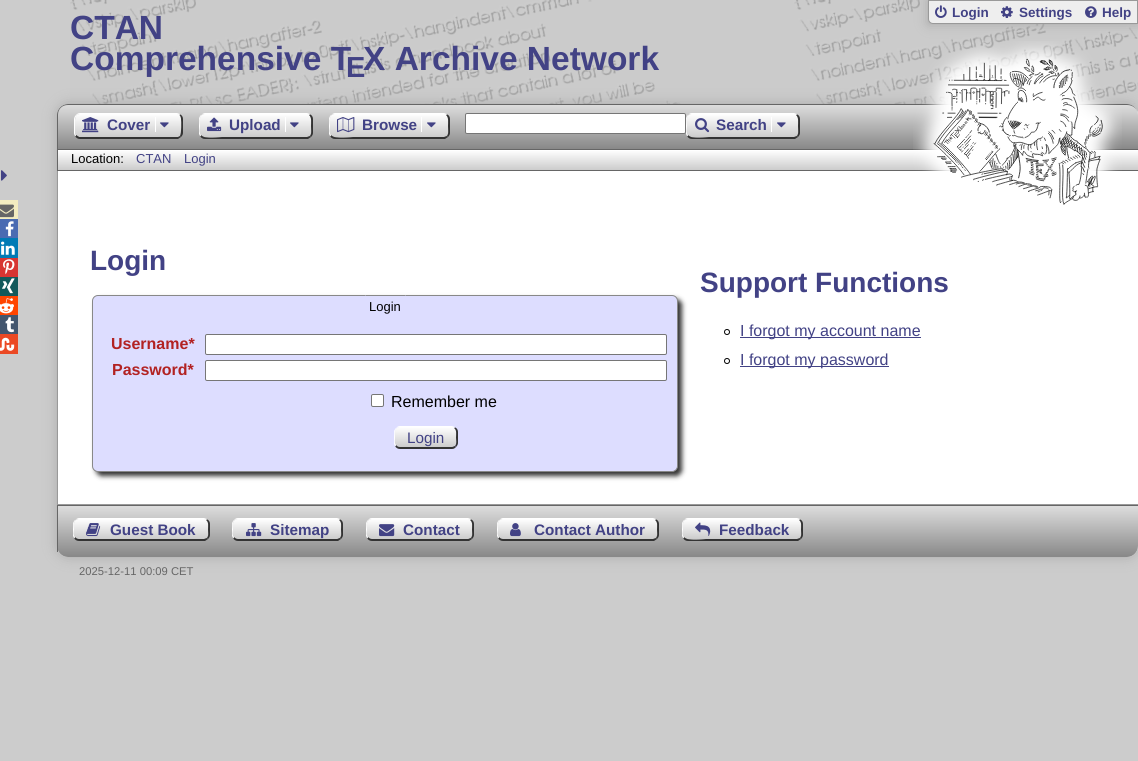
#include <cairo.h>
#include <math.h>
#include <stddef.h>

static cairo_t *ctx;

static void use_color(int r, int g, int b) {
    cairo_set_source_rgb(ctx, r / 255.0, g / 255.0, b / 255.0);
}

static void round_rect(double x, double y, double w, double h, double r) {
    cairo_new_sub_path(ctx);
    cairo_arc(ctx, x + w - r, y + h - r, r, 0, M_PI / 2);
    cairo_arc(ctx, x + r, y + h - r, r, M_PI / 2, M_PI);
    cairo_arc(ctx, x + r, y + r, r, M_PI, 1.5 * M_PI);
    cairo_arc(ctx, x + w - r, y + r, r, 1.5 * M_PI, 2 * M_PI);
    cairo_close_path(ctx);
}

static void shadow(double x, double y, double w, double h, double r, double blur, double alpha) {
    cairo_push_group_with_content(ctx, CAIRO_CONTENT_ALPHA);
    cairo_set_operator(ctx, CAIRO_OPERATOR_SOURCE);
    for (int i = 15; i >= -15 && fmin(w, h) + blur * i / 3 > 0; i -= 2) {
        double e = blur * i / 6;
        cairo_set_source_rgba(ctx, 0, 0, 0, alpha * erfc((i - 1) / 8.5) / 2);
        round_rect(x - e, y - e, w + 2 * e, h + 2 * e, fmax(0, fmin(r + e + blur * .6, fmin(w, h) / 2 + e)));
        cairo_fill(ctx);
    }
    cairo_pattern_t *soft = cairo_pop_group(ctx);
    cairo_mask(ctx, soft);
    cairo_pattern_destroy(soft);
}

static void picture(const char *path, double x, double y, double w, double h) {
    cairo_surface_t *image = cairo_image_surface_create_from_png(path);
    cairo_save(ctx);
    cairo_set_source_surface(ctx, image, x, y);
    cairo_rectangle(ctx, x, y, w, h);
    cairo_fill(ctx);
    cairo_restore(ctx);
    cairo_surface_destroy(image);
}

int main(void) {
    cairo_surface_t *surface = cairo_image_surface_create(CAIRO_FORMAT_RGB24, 1138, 761);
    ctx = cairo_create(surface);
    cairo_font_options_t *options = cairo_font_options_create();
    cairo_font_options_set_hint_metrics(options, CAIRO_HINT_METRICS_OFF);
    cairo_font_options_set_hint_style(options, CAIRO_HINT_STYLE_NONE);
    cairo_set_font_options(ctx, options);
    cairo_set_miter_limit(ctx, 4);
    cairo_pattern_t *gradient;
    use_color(204, 204, 204);
    cairo_paint(ctx);
    picture("img4.png", 70, 0, 1068, 104);
    use_color(170, 170, 170);
    shadow(57, 104, 1081, 453, 11, 6.5, 1);
    use_color(255, 255, 255);
    round_rect(57, 104, 1081, 453, 11);
    cairo_fill(ctx);
    cairo_save(ctx);
    cairo_new_path(ctx);
    cairo_move_to(ctx, 68, 104);
    cairo_line_to(ctx, 1127, 104);
    cairo_curve_to(ctx, 1133, 104, 1138, 109, 1138, 115);
    cairo_line_to(ctx, 1138, 149);
    cairo_line_to(ctx, 57, 149);
    cairo_line_to(ctx, 57, 115);
    cairo_curve_to(ctx, 57, 109, 62, 104, 68, 104);
    cairo_close_path(ctx);
    cairo_clip(ctx);
    gradient = cairo_pattern_create_linear(598, 105, 598, 149);
    cairo_pattern_add_color_stop_rgba(gradient, 0, 0.867, 0.867, 0.867, 1);
    cairo_pattern_add_color_stop_rgba(gradient, 1, 0.533, 0.533, 0.533, 1);
    cairo_set_source(ctx, gradient);
    cairo_pattern_destroy(gradient);
    cairo_rectangle(ctx, 57, 105, 1081, 44);
    cairo_fill(ctx);
    cairo_restore(ctx);
    use_color(102, 102, 102);
    cairo_set_fill_rule(ctx, CAIRO_FILL_RULE_EVEN_ODD);
    cairo_new_path(ctx);
    cairo_move_to(ctx, 68, 104);
    cairo_line_to(ctx, 1127, 104);
    cairo_curve_to(ctx, 1133, 104, 1138, 109, 1138, 115);
    cairo_line_to(ctx, 1138, 149);
    cairo_line_to(ctx, 57, 149);
    cairo_line_to(ctx, 57, 115);
    cairo_curve_to(ctx, 57, 109, 62, 104, 68, 104);
    cairo_close_path(ctx);
    cairo_move_to(ctx, 68, 105);
    cairo_line_to(ctx, 1127, 105);
    cairo_curve_to(ctx, 1133, 105, 1138, 109, 1138, 115);
    cairo_line_to(ctx, 1138, 149);
    cairo_line_to(ctx, 58, 149);
    cairo_line_to(ctx, 58, 115);
    cairo_curve_to(ctx, 58, 109, 62, 105, 68, 105);
    cairo_close_path(ctx);
    cairo_fill(ctx);
    gradient = cairo_pattern_create_linear(598, 150, 598, 170);
    cairo_pattern_add_color_stop_rgba(gradient, 0, 1, 1, 1, 1);
    cairo_pattern_add_color_stop_rgba(gradient, 1, 0.8, 0.8, 0.8, 1);
    cairo_set_source(ctx, gradient);
    cairo_pattern_destroy(gradient);
    cairo_rectangle(ctx, 58, 151, 1080, 19);
    cairo_fill(ctx);
    use_color(102, 102, 102);
    cairo_rectangle(ctx, 57, 149, 1081, 1);
    cairo_fill(ctx);
    cairo_rectangle(ctx, 57, 170, 1081, 1);
    cairo_fill(ctx);
    picture("img5.png", 913, 41, 209, 164);
    use_color(170, 170, 170);
    shadow(928, 0, 210, 24, 0, 6, 1);
    use_color(238, 238, 238);
    cairo_new_path(ctx);
    cairo_move_to(ctx, 928.5, 0.5);
    cairo_line_to(ctx, 1137.5, 0.5);
    cairo_line_to(ctx, 1137.5, 23.5);
    cairo_line_to(ctx, 933, 23.5);
    cairo_curve_to(ctx, 930.5, 23.5, 928.5, 21.5, 928.5, 19);
    cairo_close_path(ctx);
    cairo_fill_preserve(ctx);
    use_color(153, 153, 153);
    cairo_set_line_width(ctx, 1);
    cairo_stroke(ctx);
    picture("img1.png", 935, 5, 12, 13);
    cairo_select_font_face(ctx, "Liberation Sans", CAIRO_FONT_SLANT_NORMAL, CAIRO_FONT_WEIGHT_BOLD);
    cairo_set_font_size(ctx, 13.5);
    use_color(66, 66, 133);
    cairo_move_to(ctx, 952, 17);
    cairo_show_text(ctx, "Login");
    picture("img2.png", 1001, 6, 12, 12);
    cairo_move_to(ctx, 1019, 17);
    cairo_show_text(ctx, "Settings");
    picture("img3.png", 1085, 6, 12, 12);
    cairo_move_to(ctx, 1102, 17);
    cairo_show_text(ctx, "Help");
    cairo_set_font_size(ctx, 33.5);
    cairo_move_to(ctx, 70, 39);
    cairo_show_text(ctx, "CTAN");
    cairo_move_to(ctx, 70, 70);
    cairo_show_text(ctx, "Comprehensive T");
    cairo_set_font_size(ctx, 29);
    cairo_move_to(ctx, 346, 77);
    cairo_show_text(ctx, "E");
    cairo_set_font_size(ctx, 33.5);
    cairo_move_to(ctx, 363, 70);
    cairo_show_text(ctx, "X Archive Network");
    gradient = cairo_pattern_create_linear(128, 114, 128, 137);
    cairo_pattern_add_color_stop_rgba(gradient, 0, 1, 1, 1, 1);
    cairo_pattern_add_color_stop_rgba(gradient, 1, 0.8, 0.8, 0.8, 1);
    cairo_set_source(ctx, gradient);
    cairo_pattern_destroy(gradient);
    cairo_set_fill_rule(ctx, CAIRO_FILL_RULE_WINDING);
    cairo_new_path(ctx);
    cairo_move_to(ctx, 80, 114);
    cairo_line_to(ctx, 177, 114);
    cairo_curve_to(ctx, 183, 114, 181, 127, 181, 131);
    cairo_curve_to(ctx, 181, 133, 181, 136, 178, 137);
    cairo_line_to(ctx, 79, 137);
    cairo_line_to(ctx, 76, 135);
    cairo_curve_to(ctx, 74, 133, 75, 129, 75, 126);
    cairo_curve_to(ctx, 75, 122, 74, 114, 80, 114);
    cairo_close_path(ctx);
    cairo_fill(ctx);
    use_color(255, 255, 255);
    cairo_new_path(ctx);
    cairo_move_to(ctx, 80, 113);
    cairo_curve_to(ctx, 78, 113, 77, 114, 76, 115);
    cairo_line_to(ctx, 77, 116);
    cairo_curve_to(ctx, 77, 114, 79, 114, 80, 114);
    cairo_line_to(ctx, 177, 114);
    cairo_line_to(ctx, 179, 115);
    cairo_line_to(ctx, 180, 114);
    cairo_line_to(ctx, 177, 113);
    cairo_close_path(ctx);
    cairo_fill(ctx);
    use_color(51, 51, 51);
    cairo_new_path(ctx);
    cairo_move_to(ctx, 183, 133);
    cairo_line_to(ctx, 183, 119);
    cairo_curve_to(ctx, 183, 117, 182, 115.5, 180.5, 114.5);
    cairo_line_to(ctx, 179.5, 115);
    cairo_curve_to(ctx, 180.5, 116, 181, 117.5, 181, 119);
    cairo_curve_to(ctx, 181.5, 121, 181.5, 133.5, 180, 136);
    cairo_line_to(ctx, 181, 137);
    cairo_curve_to(ctx, 182, 136, 183, 134.5, 183, 133);
    cairo_close_path(ctx);
    cairo_fill(ctx);
    cairo_new_path(ctx);
    cairo_move_to(ctx, 80, 139);
    cairo_line_to(ctx, 178, 139);
    cairo_line_to(ctx, 181, 137);
    cairo_line_to(ctx, 180, 136);
    cairo_line_to(ctx, 178, 137);
    cairo_line_to(ctx, 79, 137);
    cairo_line_to(ctx, 76, 135);
    cairo_line_to(ctx, 75, 136);
    cairo_curve_to(ctx, 76, 138, 78, 139, 80, 139);
    cairo_close_path(ctx);
    cairo_fill(ctx);
    use_color(255, 255, 255);
    cairo_new_path(ctx);
    cairo_move_to(ctx, 74, 119);
    cairo_line_to(ctx, 74, 133);
    cairo_curve_to(ctx, 74, 134, 74.5, 135.5, 75.5, 136.5);
    cairo_line_to(ctx, 76, 135);
    cairo_curve_to(ctx, 75, 134, 75, 133, 75, 132);
    cairo_line_to(ctx, 75, 118.5);
    cairo_line_to(ctx, 76.5, 115.5);
    cairo_line_to(ctx, 76, 115);
    cairo_curve_to(ctx, 75, 116, 74, 117.5, 74, 119);
    cairo_close_path(ctx);
    cairo_fill(ctx);
    picture("img6.png", 82, 117, 17, 16);
    cairo_set_font_size(ctx, 15.25);
    use_color(66, 66, 133);
    cairo_move_to(ctx, 107, 130);
    cairo_show_text(ctx, "Cover");
    use_color(255, 255, 255);
    cairo_rectangle(ctx, 155, 117, 1, 15);
    cairo_fill(ctx);
    picture("img7.png", 160, 122, 9, 6);
    gradient = cairo_pattern_create_linear(256, 114, 256, 137);
    cairo_pattern_add_color_stop_rgba(gradient, 0, 1, 1, 1, 1);
    cairo_pattern_add_color_stop_rgba(gradient, 1, 0.8, 0.8, 0.8, 1);
    cairo_set_source(ctx, gradient);
    cairo_pattern_destroy(gradient);
    cairo_new_path(ctx);
    cairo_move_to(ctx, 205, 114);
    cairo_line_to(ctx, 307, 114);
    cairo_curve_to(ctx, 309, 114, 311, 116, 311, 119);
    cairo_line_to(ctx, 311, 133);
    cairo_curve_to(ctx, 311, 135, 309, 137, 307, 137);
    cairo_line_to(ctx, 205, 137);
    cairo_curve_to(ctx, 202, 137, 200, 135, 200, 133);
    cairo_line_to(ctx, 200, 119);
    cairo_curve_to(ctx, 200, 116, 202, 114, 205, 114);
    cairo_close_path(ctx);
    cairo_fill(ctx);
    use_color(255, 255, 255);
    cairo_new_path(ctx);
    cairo_move_to(ctx, 205, 113);
    cairo_curve_to(ctx, 204, 113, 202, 114, 201, 115);
    cairo_curve_to(ctx, 202, 114, 204, 114, 205, 114);
    cairo_line_to(ctx, 307, 114);
    cairo_line_to(ctx, 309, 115);
    cairo_line_to(ctx, 310, 114);
    cairo_line_to(ctx, 307, 113);
    cairo_close_path(ctx);
    cairo_fill(ctx);
    use_color(51, 51, 51);
    cairo_new_path(ctx);
    cairo_move_to(ctx, 313, 133);
    cairo_line_to(ctx, 313, 119);
    cairo_curve_to(ctx, 313, 117, 312, 115.5, 310.5, 114.5);
    cairo_line_to(ctx, 309, 115);
    cairo_curve_to(ctx, 312, 117.5, 311, 123, 311, 126);
    cairo_curve_to(ctx, 311, 129, 312, 133.5, 310, 136);
    cairo_line_to(ctx, 311, 137);
    cairo_curve_to(ctx, 312, 136, 313, 134.5, 313, 133);
    cairo_close_path(ctx);
    cairo_fill(ctx);
    cairo_new_path(ctx);
    cairo_move_to(ctx, 205, 139);
    cairo_line_to(ctx, 308, 139);
    cairo_line_to(ctx, 311, 137);
    cairo_line_to(ctx, 310, 136);
    cairo_line_to(ctx, 307, 137);
    cairo_line_to(ctx, 222, 137);
    cairo_curve_to(ctx, 221, 137, 205, 140, 201, 135);
    cairo_line_to(ctx, 200, 136);
    cairo_curve_to(ctx, 201, 138, 203, 139, 205, 139);
    cairo_close_path(ctx);
    cairo_fill(ctx);
    use_color(255, 255, 255);
    cairo_new_path(ctx);
    cairo_move_to(ctx, 199, 119);
    cairo_line_to(ctx, 199, 133);
    cairo_curve_to(ctx, 199, 134, 199.5, 135.5, 200.5, 136.5);
    cairo_line_to(ctx, 201, 135);
    cairo_curve_to(ctx, 199, 133.5, 200, 128.5, 200, 126);
    cairo_curve_to(ctx, 200, 123, 199, 117.5, 201.5, 115.5);
    cairo_line_to(ctx, 201, 115);
    cairo_curve_to(ctx, 200, 116, 199, 117.5, 199, 119);
    cairo_close_path(ctx);
    cairo_fill(ctx);
    picture("img8.png", 207, 117, 15, 15);
    use_color(66, 66, 133);
    cairo_move_to(ctx, 229, 130);
    cairo_show_text(ctx, "Upload");
    use_color(255, 255, 255);
    cairo_rectangle(ctx, 285, 117, 1, 15);
    cairo_fill(ctx);
    picture("img7.png", 290, 122, 9, 6);
    gradient = cairo_pattern_create_linear(389, 114, 389, 137);
    cairo_pattern_add_color_stop_rgba(gradient, 0, 1, 1, 1, 1);
    cairo_pattern_add_color_stop_rgba(gradient, 1, 0.8, 0.8, 0.8, 1);
    cairo_set_source(ctx, gradient);
    cairo_pattern_destroy(gradient);
    cairo_new_path(ctx);
    cairo_move_to(ctx, 335, 114);
    cairo_line_to(ctx, 444, 114);
    cairo_curve_to(ctx, 446, 114, 448, 116, 448, 119);
    cairo_line_to(ctx, 448, 133);
    cairo_curve_to(ctx, 448, 135, 446, 137, 444, 137);
    cairo_line_to(ctx, 335, 137);
    cairo_curve_to(ctx, 332, 137, 330, 135, 330, 133);
    cairo_line_to(ctx, 330, 119);
    cairo_curve_to(ctx, 330, 116, 332, 114, 335, 114);
    cairo_close_path(ctx);
    cairo_fill(ctx);
    use_color(255, 255, 255);
    cairo_new_path(ctx);
    cairo_move_to(ctx, 335, 113);
    cairo_curve_to(ctx, 334, 113, 332, 114, 331, 115);
    cairo_curve_to(ctx, 332, 114, 334, 114, 335, 114);
    cairo_line_to(ctx, 444, 114);
    cairo_line_to(ctx, 446, 115);
    cairo_line_to(ctx, 447, 114);
    cairo_line_to(ctx, 444, 113);
    cairo_close_path(ctx);
    cairo_fill(ctx);
    use_color(51, 51, 51);
    cairo_new_path(ctx);
    cairo_move_to(ctx, 450, 133);
    cairo_line_to(ctx, 450, 119);
    cairo_curve_to(ctx, 450, 117, 449, 115.5, 447.5, 114.5);
    cairo_line_to(ctx, 446, 115);
    cairo_curve_to(ctx, 449, 117.5, 448, 123, 448, 126);
    cairo_curve_to(ctx, 448, 129, 449, 133.5, 447, 136);
    cairo_line_to(ctx, 448, 137);
    cairo_curve_to(ctx, 449, 136, 450, 134.5, 450, 133);
    cairo_close_path(ctx);
    cairo_fill(ctx);
    cairo_new_path(ctx);
    cairo_move_to(ctx, 335, 139);
    cairo_line_to(ctx, 445, 139);
    cairo_line_to(ctx, 448, 137);
    cairo_line_to(ctx, 447, 136);
    cairo_line_to(ctx, 444, 137);
    cairo_line_to(ctx, 353, 137);
    cairo_curve_to(ctx, 353, 137, 335, 140, 331, 135);
    cairo_line_to(ctx, 330, 136);
    cairo_curve_to(ctx, 331, 138, 333, 139, 335, 139);
    cairo_close_path(ctx);
    cairo_fill(ctx);
    use_color(255, 255, 255);
    cairo_new_path(ctx);
    cairo_move_to(ctx, 329, 119);
    cairo_line_to(ctx, 329, 133);
    cairo_curve_to(ctx, 329, 134, 329.5, 135.5, 330.5, 136.5);
    cairo_line_to(ctx, 331, 135);
    cairo_curve_to(ctx, 329, 133.5, 330, 128.5, 330, 126);
    cairo_curve_to(ctx, 330, 123, 329, 117.5, 331.5, 115.5);
    cairo_line_to(ctx, 331, 115);
    cairo_curve_to(ctx, 330, 116, 329, 117.5, 329, 119);
    cairo_close_path(ctx);
    cairo_fill(ctx);
    picture("img9.png", 337, 117, 18, 16);
    use_color(66, 66, 133);
    cairo_move_to(ctx, 362, 130);
    cairo_show_text(ctx, "Browse");
    use_color(255, 255, 255);
    cairo_rectangle(ctx, 421, 117, 1, 15);
    cairo_fill(ctx);
    picture("img7.png", 427, 122, 9, 6);
    round_rect(465.5, 113.5, 220, 20, 1.5);
    cairo_fill_preserve(ctx);
    use_color(118, 118, 118);
    cairo_stroke(ctx);
    gradient = cairo_pattern_create_linear(743, 114, 743, 137);
    cairo_pattern_add_color_stop_rgba(gradient, 0, 1, 1, 1, 1);
    cairo_pattern_add_color_stop_rgba(gradient, 1, 0.8, 0.8, 0.8, 1);
    cairo_set_source(ctx, gradient);
    cairo_pattern_destroy(gradient);
    cairo_new_path(ctx);
    cairo_move_to(ctx, 692, 114);
    cairo_line_to(ctx, 794, 114);
    cairo_curve_to(ctx, 796, 114, 798, 116, 798, 119);
    cairo_line_to(ctx, 798, 133);
    cairo_curve_to(ctx, 798, 135, 796, 137, 794, 137);
    cairo_line_to(ctx, 692, 137);
    cairo_curve_to(ctx, 689, 137, 687, 135, 687, 133);
    cairo_line_to(ctx, 687, 119);
    cairo_curve_to(ctx, 687, 116, 689, 114, 692, 114);
    cairo_close_path(ctx);
    cairo_fill(ctx);
    use_color(255, 255, 255);
    cairo_new_path(ctx);
    cairo_move_to(ctx, 692, 113);
    cairo_curve_to(ctx, 690, 113, 689, 114, 688, 115);
    cairo_curve_to(ctx, 689, 114, 690, 114, 692, 114);
    cairo_line_to(ctx, 794, 114);
    cairo_line_to(ctx, 796, 115);
    cairo_line_to(ctx, 797, 114);
    cairo_line_to(ctx, 794, 113);
    cairo_close_path(ctx);
    cairo_fill(ctx);
    use_color(51, 51, 51);
    cairo_new_path(ctx);
    cairo_move_to(ctx, 800, 133);
    cairo_line_to(ctx, 800, 119);
    cairo_curve_to(ctx, 800, 117, 799, 115.5, 797.5, 114.5);
    cairo_line_to(ctx, 796, 115);
    cairo_curve_to(ctx, 799, 117.5, 798, 123, 798, 126);
    cairo_curve_to(ctx, 798, 129, 799, 133.5, 797, 136);
    cairo_line_to(ctx, 798, 137);
    cairo_curve_to(ctx, 799, 136, 800, 134.5, 800, 133);
    cairo_close_path(ctx);
    cairo_fill(ctx);
    cairo_new_path(ctx);
    cairo_move_to(ctx, 692, 139);
    cairo_line_to(ctx, 795, 139);
    cairo_line_to(ctx, 798, 137);
    cairo_line_to(ctx, 797, 136);
    cairo_line_to(ctx, 794, 137);
    cairo_line_to(ctx, 709, 137);
    cairo_curve_to(ctx, 708, 137, 692, 140, 688, 135);
    cairo_line_to(ctx, 687, 136);
    cairo_curve_to(ctx, 688, 138, 690, 139, 692, 139);
    cairo_close_path(ctx);
    cairo_fill(ctx);
    use_color(255, 255, 255);
    cairo_new_path(ctx);
    cairo_move_to(ctx, 686, 119);
    cairo_line_to(ctx, 686, 133);
    cairo_curve_to(ctx, 686, 134, 686.5, 135.5, 687.5, 136.5);
    cairo_line_to(ctx, 688, 135);
    cairo_curve_to(ctx, 686, 133.5, 687, 128.5, 687, 126);
    cairo_curve_to(ctx, 687, 123, 686, 117.5, 688.5, 115.5);
    cairo_line_to(ctx, 688, 115);
    cairo_curve_to(ctx, 687, 116, 686, 117.5, 686, 119);
    cairo_close_path(ctx);
    cairo_fill(ctx);
    picture("img10.png", 695, 118, 15, 15);
    use_color(66, 66, 133);
    cairo_move_to(ctx, 716, 130);
    cairo_show_text(ctx, "Search");
    use_color(255, 255, 255);
    cairo_rectangle(ctx, 771, 117, 1, 15);
    cairo_fill(ctx);
    picture("img7.png", 777, 122, 9, 6);
    use_color(102, 102, 102);
    cairo_rectangle(ctx, 57, 149, 1, 22);
    cairo_fill(ctx);
    cairo_select_font_face(ctx, "Liberation Sans", CAIRO_FONT_SLANT_NORMAL, CAIRO_FONT_WEIGHT_NORMAL);
    cairo_set_font_size(ctx, 13);
    use_color(0, 0, 0);
    cairo_move_to(ctx, 71, 163);
    cairo_show_text(ctx, "Location:");
    use_color(66, 66, 133);
    cairo_move_to(ctx, 136, 163);
    cairo_show_text(ctx, "CTAN");
    cairo_move_to(ctx, 184, 163);
    cairo_show_text(ctx, "Login");
    use_color(153, 153, 153);
    cairo_rectangle(ctx, 57, 504, 1081, 1);
    cairo_fill(ctx);
    cairo_rectangle(ctx, 57, 171, 1, 334);
    cairo_fill(ctx);
    cairo_select_font_face(ctx, "Liberation Sans", CAIRO_FONT_SLANT_NORMAL, CAIRO_FONT_WEIGHT_BOLD);
    cairo_set_font_size(ctx, 28);
    use_color(66, 66, 133);
    cairo_move_to(ctx, 90, 270);
    cairo_show_text(ctx, "Login");
    use_color(51, 51, 51);
    shadow(96, 299, 586, 177, 6, 2.5, 1);
    use_color(221, 221, 255);
    round_rect(92.5, 295.5, 585, 176, 5.5);
    cairo_fill_preserve(ctx);
    use_color(136, 136, 136);
    cairo_stroke(ctx);
    use_color(221, 221, 255);
    round_rect(363, 295, 45, 24, 5);
    cairo_fill(ctx);
    use_color(136, 136, 136);
    cairo_rectangle(ctx, 366, 295, 39, 1);
    cairo_fill(ctx);
    cairo_select_font_face(ctx, "Liberation Sans", CAIRO_FONT_SLANT_NORMAL, CAIRO_FONT_WEIGHT_NORMAL);
    cairo_set_font_size(ctx, 13);
    use_color(0, 0, 0);
    cairo_move_to(ctx, 369, 311);
    cairo_show_text(ctx, "Login");
    cairo_select_font_face(ctx, "Liberation Sans", CAIRO_FONT_SLANT_NORMAL, CAIRO_FONT_WEIGHT_BOLD);
    cairo_set_font_size(ctx, 16);
    use_color(178, 34, 34);
    cairo_move_to(ctx, 111, 349);
    cairo_show_text(ctx, "Username*");
    use_color(255, 255, 255);
    round_rect(205.5, 334.5, 461, 20, 1.5);
    cairo_fill_preserve(ctx);
    use_color(118, 118, 118);
    cairo_stroke(ctx);
    use_color(178, 34, 34);
    cairo_move_to(ctx, 112, 375);
    cairo_show_text(ctx, "Password*");
    use_color(255, 255, 255);
    round_rect(205.5, 360.5, 461, 20, 1.5);
    cairo_fill_preserve(ctx);
    use_color(118, 118, 118);
    cairo_stroke(ctx);
    use_color(255, 255, 255);
    round_rect(371.5, 394.5, 12, 12, 1.5);
    cairo_fill_preserve(ctx);
    use_color(118, 118, 118);
    cairo_stroke(ctx);
    cairo_select_font_face(ctx, "Liberation Sans", CAIRO_FONT_SLANT_NORMAL, CAIRO_FONT_WEIGHT_NORMAL);
    use_color(0, 0, 0);
    cairo_move_to(ctx, 391, 407);
    cairo_show_text(ctx, "Remember me");
    gradient = cairo_pattern_create_linear(426, 427, 426, 447);
    cairo_pattern_add_color_stop_rgba(gradient, 0, 1, 1, 1, 1);
    cairo_pattern_add_color_stop_rgba(gradient, 1, 0.8, 0.8, 0.8, 1);
    cairo_set_source(ctx, gradient);
    cairo_pattern_destroy(gradient);
    cairo_new_path(ctx);
    cairo_move_to(ctx, 400, 427);
    cairo_line_to(ctx, 452, 427);
    cairo_curve_to(ctx, 454, 427, 456, 429, 456, 432);
    cairo_line_to(ctx, 456, 443);
    cairo_curve_to(ctx, 456, 445, 454, 447, 452, 447);
    cairo_line_to(ctx, 400, 447);
    cairo_curve_to(ctx, 397, 447, 395, 445, 395, 443);
    cairo_line_to(ctx, 395, 432);
    cairo_curve_to(ctx, 395, 429, 397, 427, 400, 427);
    cairo_close_path(ctx);
    cairo_fill(ctx);
    use_color(255, 255, 255);
    cairo_new_path(ctx);
    cairo_move_to(ctx, 400, 426);
    cairo_curve_to(ctx, 398, 426, 397, 427, 396, 428);
    cairo_line_to(ctx, 399, 427);
    cairo_line_to(ctx, 452, 427);
    cairo_line_to(ctx, 454, 428);
    cairo_line_to(ctx, 455, 427);
    cairo_line_to(ctx, 452, 426);
    cairo_close_path(ctx);
    cairo_fill(ctx);
    use_color(51, 51, 51);
    cairo_new_path(ctx);
    cairo_move_to(ctx, 458, 443);
    cairo_line_to(ctx, 458, 432);
    cairo_curve_to(ctx, 458, 430, 457, 428.5, 455.5, 427.5);
    cairo_line_to(ctx, 454, 428);
    cairo_curve_to(ctx, 457, 430, 456, 434.5, 456, 437.5);
    cairo_curve_to(ctx, 456, 440, 457, 443.5, 455, 446);
    cairo_line_to(ctx, 456, 447);
    cairo_curve_to(ctx, 457, 446, 458, 444.5, 458, 443);
    cairo_close_path(ctx);
    cairo_fill(ctx);
    cairo_new_path(ctx);
    cairo_move_to(ctx, 400, 449);
    cairo_line_to(ctx, 452, 449);
    cairo_curve_to(ctx, 454, 449, 455, 448, 456, 447);
    cairo_line_to(ctx, 455, 446);
    cairo_curve_to(ctx, 454, 446, 453, 447, 452, 447);
    cairo_line_to(ctx, 400, 447);
    cairo_curve_to(ctx, 398, 447, 397, 446, 396, 445);
    cairo_line_to(ctx, 395, 446);
    cairo_curve_to(ctx, 396, 448, 398, 449, 400, 449);
    cairo_close_path(ctx);
    cairo_fill(ctx);
    use_color(255, 255, 255);
    cairo_new_path(ctx);
    cairo_move_to(ctx, 394, 432);
    cairo_line_to(ctx, 394, 443);
    cairo_curve_to(ctx, 394, 444, 394.5, 445.5, 395.5, 446.5);
    cairo_line_to(ctx, 396, 445);
    cairo_curve_to(ctx, 394, 443, 395, 440, 395, 437.5);
    cairo_curve_to(ctx, 395, 434.5, 394, 430.5, 396.5, 428.5);
    cairo_line_to(ctx, 396, 428);
    cairo_curve_to(ctx, 395, 429, 394, 430.5, 394, 432);
    cairo_close_path(ctx);
    cairo_fill(ctx);
    cairo_set_font_size(ctx, 15.25);
    use_color(66, 66, 133);
    cairo_move_to(ctx, 407, 443);
    cairo_show_text(ctx, "Login");
    cairo_select_font_face(ctx, "Liberation Sans", CAIRO_FONT_SLANT_NORMAL, CAIRO_FONT_WEIGHT_BOLD);
    cairo_set_font_size(ctx, 28);
    cairo_move_to(ctx, 700, 292);
    cairo_show_text(ctx, "Support Functions");
    cairo_new_path(ctx);
    cairo_arc(ctx, 727, 332, 2.5, 0, 2 * M_PI);
    use_color(0, 0, 0);
    cairo_stroke(ctx);
    use_color(66, 66, 133);
    cairo_rectangle(ctx, 740, 337, 181, 1);
    cairo_fill(ctx);
    cairo_select_font_face(ctx, "Liberation Sans", CAIRO_FONT_SLANT_NORMAL, CAIRO_FONT_WEIGHT_NORMAL);
    cairo_set_font_size(ctx, 16);
    cairo_move_to(ctx, 740, 336);
    cairo_show_text(ctx, "I forgot my account name");
    cairo_new_path(ctx);
    cairo_arc(ctx, 727, 361, 2.5, 0, 2 * M_PI);
    use_color(0, 0, 0);
    cairo_stroke(ctx);
    use_color(66, 66, 133);
    cairo_rectangle(ctx, 740, 366, 149, 1);
    cairo_fill(ctx);
    cairo_move_to(ctx, 740, 365);
    cairo_show_text(ctx, "I forgot my password");
    gradient = cairo_pattern_create_linear(598, 506, 598, 557);
    cairo_pattern_add_color_stop_rgba(gradient, 0, 0.867, 0.867, 0.867, 1);
    cairo_pattern_add_color_stop_rgba(gradient, 1, 0.533, 0.533, 0.533, 1);
    cairo_set_source(ctx, gradient);
    cairo_pattern_destroy(gradient);
    cairo_new_path(ctx);
    cairo_move_to(ctx, 57, 506);
    cairo_line_to(ctx, 1138, 506);
    cairo_line_to(ctx, 1138, 546);
    cairo_curve_to(ctx, 1138, 552, 1133, 557, 1127, 557);
    cairo_line_to(ctx, 68, 557);
    cairo_curve_to(ctx, 62, 557, 57, 552, 57, 546);
    cairo_close_path(ctx);
    cairo_fill(ctx);
    use_color(102, 102, 102);
    cairo_rectangle(ctx, 57, 505, 1081, 1);
    cairo_fill(ctx);
    cairo_rectangle(ctx, 57, 505, 1, 47);
    cairo_fill(ctx);
    gradient = cairo_pattern_create_linear(141, 519, 141, 539);
    cairo_pattern_add_color_stop_rgba(gradient, 0, 1, 1, 1, 1);
    cairo_pattern_add_color_stop_rgba(gradient, 1, 0.8, 0.8, 0.8, 1);
    cairo_set_source(ctx, gradient);
    cairo_pattern_destroy(gradient);
    cairo_new_path(ctx);
    cairo_move_to(ctx, 79, 519);
    cairo_line_to(ctx, 204, 519);
    cairo_curve_to(ctx, 206, 519, 208, 521, 208, 524);
    cairo_line_to(ctx, 208, 535);
    cairo_curve_to(ctx, 208, 537, 206, 539, 204, 539);
    cairo_line_to(ctx, 79, 539);
    cairo_curve_to(ctx, 76, 539, 74, 537, 74, 535);
    cairo_line_to(ctx, 74, 524);
    cairo_curve_to(ctx, 74, 521, 76, 519, 79, 519);
    cairo_close_path(ctx);
    cairo_fill(ctx);
    use_color(255, 255, 255);
    cairo_new_path(ctx);
    cairo_move_to(ctx, 79, 518);
    cairo_curve_to(ctx, 78, 518, 76, 519, 75, 520);
    cairo_curve_to(ctx, 76, 519, 78, 519, 79, 519);
    cairo_line_to(ctx, 204, 519);
    cairo_line_to(ctx, 206, 520);
    cairo_line_to(ctx, 207, 519);
    cairo_line_to(ctx, 204, 518);
    cairo_close_path(ctx);
    cairo_fill(ctx);
    use_color(51, 51, 51);
    cairo_new_path(ctx);
    cairo_move_to(ctx, 210, 535);
    cairo_line_to(ctx, 210, 524);
    cairo_curve_to(ctx, 210, 522, 209, 520.5, 207.5, 519.5);
    cairo_line_to(ctx, 206, 520);
    cairo_curve_to(ctx, 209, 522, 208, 526.5, 208, 529.5);
    cairo_curve_to(ctx, 208, 532, 209, 535.5, 207, 538);
    cairo_line_to(ctx, 208, 539);
    cairo_curve_to(ctx, 209, 538, 210, 536.5, 210, 535);
    cairo_close_path(ctx);
    cairo_fill(ctx);
    cairo_new_path(ctx);
    cairo_move_to(ctx, 79, 541);
    cairo_line_to(ctx, 205, 541);
    cairo_line_to(ctx, 208, 539);
    cairo_line_to(ctx, 207, 538);
    cairo_line_to(ctx, 204, 539);
    cairo_line_to(ctx, 79, 539);
    cairo_curve_to(ctx, 77, 539, 76, 538, 75, 537);
    cairo_line_to(ctx, 74, 538);
    cairo_curve_to(ctx, 75, 540, 77, 541, 79, 541);
    cairo_close_path(ctx);
    cairo_fill(ctx);
    use_color(255, 255, 255);
    cairo_new_path(ctx);
    cairo_move_to(ctx, 73, 524);
    cairo_line_to(ctx, 73, 535);
    cairo_curve_to(ctx, 73, 536, 73.5, 537.5, 74.5, 538.5);
    cairo_line_to(ctx, 75, 537);
    cairo_curve_to(ctx, 73, 535, 74, 532, 74, 529.5);
    cairo_curve_to(ctx, 74, 526.5, 73, 522.5, 75.5, 520.5);
    cairo_line_to(ctx, 75, 520);
    cairo_curve_to(ctx, 74, 521, 73, 522.5, 73, 524);
    cairo_close_path(ctx);
    cairo_fill(ctx);
    picture("img11.png", 86, 523, 15, 14);
    cairo_select_font_face(ctx, "Liberation Sans", CAIRO_FONT_SLANT_NORMAL, CAIRO_FONT_WEIGHT_BOLD);
    cairo_set_font_size(ctx, 15.25);
    use_color(66, 66, 133);
    cairo_move_to(ctx, 110, 535);
    cairo_show_text(ctx, "Guest Book");
    gradient = cairo_pattern_create_linear(287, 519, 287, 539);
    cairo_pattern_add_color_stop_rgba(gradient, 0, 1, 1, 1, 1);
    cairo_pattern_add_color_stop_rgba(gradient, 1, 0.8, 0.8, 0.8, 1);
    cairo_set_source(ctx, gradient);
    cairo_pattern_destroy(gradient);
    cairo_new_path(ctx);
    cairo_move_to(ctx, 238, 519);
    cairo_line_to(ctx, 337, 519);
    cairo_curve_to(ctx, 339, 519, 341, 521, 341, 524);
    cairo_line_to(ctx, 341, 535);
    cairo_curve_to(ctx, 341, 537, 339, 539, 337, 539);
    cairo_line_to(ctx, 238, 539);
    cairo_curve_to(ctx, 235, 539, 233, 537, 233, 535);
    cairo_line_to(ctx, 233, 524);
    cairo_curve_to(ctx, 233, 521, 235, 519, 238, 519);
    cairo_close_path(ctx);
    cairo_fill(ctx);
    use_color(255, 255, 255);
    cairo_new_path(ctx);
    cairo_move_to(ctx, 238, 518);
    cairo_curve_to(ctx, 236, 518, 235, 519, 234, 520);
    cairo_curve_to(ctx, 235, 520, 236, 519, 238, 519);
    cairo_line_to(ctx, 337, 519);
    cairo_line_to(ctx, 339, 520);
    cairo_line_to(ctx, 340, 519);
    cairo_line_to(ctx, 337, 518);
    cairo_close_path(ctx);
    cairo_fill(ctx);
    use_color(51, 51, 51);
    cairo_new_path(ctx);
    cairo_move_to(ctx, 343, 535);
    cairo_line_to(ctx, 343, 524);
    cairo_curve_to(ctx, 343, 522, 342, 520.5, 340.5, 519.5);
    cairo_line_to(ctx, 339, 520);
    cairo_curve_to(ctx, 342, 522, 341, 526.5, 341, 529.5);
    cairo_curve_to(ctx, 341, 532, 342, 535.5, 340, 538);
    cairo_line_to(ctx, 341, 539);
    cairo_curve_to(ctx, 342, 538, 343, 536.5, 343, 535);
    cairo_close_path(ctx);
    cairo_fill(ctx);
    cairo_new_path(ctx);
    cairo_move_to(ctx, 238, 541);
    cairo_line_to(ctx, 338, 541);
    cairo_line_to(ctx, 341, 539);
    cairo_line_to(ctx, 340, 538);
    cairo_curve_to(ctx, 339, 538, 338, 539, 337, 539);
    cairo_line_to(ctx, 238, 539);
    cairo_curve_to(ctx, 236, 539, 235, 538, 234, 537);
    cairo_line_to(ctx, 233, 538);
    cairo_curve_to(ctx, 234, 540, 236, 541, 238, 541);
    cairo_close_path(ctx);
    cairo_fill(ctx);
    use_color(255, 255, 255);
    cairo_new_path(ctx);
    cairo_move_to(ctx, 232, 524);
    cairo_line_to(ctx, 232, 535);
    cairo_curve_to(ctx, 232, 536, 232.5, 537.5, 233.5, 538.5);
    cairo_line_to(ctx, 234, 537);
    cairo_curve_to(ctx, 232, 535, 233, 532, 233, 529.5);
    cairo_curve_to(ctx, 233, 526.5, 232, 522.5, 234.5, 520.5);
    cairo_line_to(ctx, 234, 520);
    cairo_curve_to(ctx, 233, 521, 232, 522.5, 232, 524);
    cairo_close_path(ctx);
    cairo_fill(ctx);
    picture("img12.png", 246, 523, 16, 14);
    use_color(66, 66, 133);
    cairo_move_to(ctx, 270, 535);
    cairo_show_text(ctx, "Sitemap");
    gradient = cairo_pattern_create_linear(420, 519, 420, 539);
    cairo_pattern_add_color_stop_rgba(gradient, 0, 1, 1, 1, 1);
    cairo_pattern_add_color_stop_rgba(gradient, 1, 0.8, 0.8, 0.8, 1);
    cairo_set_source(ctx, gradient);
    cairo_pattern_destroy(gradient);
    cairo_new_path(ctx);
    cairo_move_to(ctx, 372, 519);
    cairo_line_to(ctx, 468, 519);
    cairo_curve_to(ctx, 470, 519, 472, 521, 472, 524);
    cairo_line_to(ctx, 472, 535);
    cairo_curve_to(ctx, 472, 537, 470, 539, 468, 539);
    cairo_line_to(ctx, 372, 539);
    cairo_curve_to(ctx, 369, 539, 367, 537, 367, 535);
    cairo_line_to(ctx, 367, 524);
    cairo_curve_to(ctx, 367, 521, 369, 519, 372, 519);
    cairo_close_path(ctx);
    cairo_fill(ctx);
    use_color(255, 255, 255);
    cairo_new_path(ctx);
    cairo_move_to(ctx, 372, 518);
    cairo_curve_to(ctx, 370, 518, 369, 519, 368, 520);
    cairo_line_to(ctx, 371, 519);
    cairo_line_to(ctx, 468, 519);
    cairo_line_to(ctx, 470, 520);
    cairo_line_to(ctx, 471, 519);
    cairo_line_to(ctx, 468, 518);
    cairo_close_path(ctx);
    cairo_fill(ctx);
    use_color(51, 51, 51);
    cairo_new_path(ctx);
    cairo_move_to(ctx, 474, 535);
    cairo_line_to(ctx, 474, 524);
    cairo_curve_to(ctx, 474, 522, 473, 520.5, 471.5, 519.5);
    cairo_line_to(ctx, 470, 520);
    cairo_curve_to(ctx, 473, 522, 472, 526.5, 472, 529.5);
    cairo_curve_to(ctx, 472, 532, 473, 535.5, 471, 538);
    cairo_line_to(ctx, 472, 539);
    cairo_curve_to(ctx, 473, 538, 474, 536.5, 474, 535);
    cairo_close_path(ctx);
    cairo_fill(ctx);
    cairo_new_path(ctx);
    cairo_move_to(ctx, 372, 541);
    cairo_line_to(ctx, 469, 541);
    cairo_line_to(ctx, 472, 539);
    cairo_line_to(ctx, 471, 538);
    cairo_curve_to(ctx, 470, 538, 469, 539, 468, 539);
    cairo_line_to(ctx, 372, 539);
    cairo_curve_to(ctx, 370, 539, 369, 538, 368, 537);
    cairo_line_to(ctx, 367, 538);
    cairo_curve_to(ctx, 368, 540, 370, 541, 372, 541);
    cairo_close_path(ctx);
    cairo_fill(ctx);
    use_color(255, 255, 255);
    cairo_new_path(ctx);
    cairo_move_to(ctx, 366, 524);
    cairo_line_to(ctx, 366, 535);
    cairo_curve_to(ctx, 366, 536, 366.5, 537.5, 367.5, 538.5);
    cairo_line_to(ctx, 368, 537);
    cairo_curve_to(ctx, 366, 535, 367, 532, 367, 529.5);
    cairo_curve_to(ctx, 367, 526.5, 366, 522.5, 368.5, 520.5);
    cairo_line_to(ctx, 368, 520);
    cairo_curve_to(ctx, 367, 521, 366, 522.5, 366, 524);
    cairo_close_path(ctx);
    cairo_fill(ctx);
    picture("img13.png", 379, 524, 16, 13);
    use_color(66, 66, 133);
    cairo_move_to(ctx, 403, 535);
    cairo_show_text(ctx, "Contact");
    gradient = cairo_pattern_create_linear(578, 519, 578, 539);
    cairo_pattern_add_color_stop_rgba(gradient, 0, 1, 1, 1, 1);
    cairo_pattern_add_color_stop_rgba(gradient, 1, 0.8, 0.8, 0.8, 1);
    cairo_set_source(ctx, gradient);
    cairo_pattern_destroy(gradient);
    cairo_new_path(ctx);
    cairo_move_to(ctx, 503, 519);
    cairo_line_to(ctx, 653, 519);
    cairo_curve_to(ctx, 655, 519, 657, 521, 657, 524);
    cairo_line_to(ctx, 657, 535);
    cairo_curve_to(ctx, 657, 537, 655, 539, 653, 539);
    cairo_line_to(ctx, 503, 539);
    cairo_curve_to(ctx, 500, 539, 498, 537, 498, 535);
    cairo_line_to(ctx, 498, 524);
    cairo_curve_to(ctx, 498, 521, 500, 519, 503, 519);
    cairo_close_path(ctx);
    cairo_fill(ctx);
    use_color(255, 255, 255);
    cairo_new_path(ctx);
    cairo_move_to(ctx, 503, 518);
    cairo_curve_to(ctx, 502, 518, 500, 519, 499, 520);
    cairo_curve_to(ctx, 500, 519, 502, 519, 503, 519);
    cairo_line_to(ctx, 653, 519);
    cairo_line_to(ctx, 655, 520);
    cairo_line_to(ctx, 656, 519);
    cairo_line_to(ctx, 653, 518);
    cairo_close_path(ctx);
    cairo_fill(ctx);
    use_color(51, 51, 51);
    cairo_new_path(ctx);
    cairo_move_to(ctx, 659, 535);
    cairo_line_to(ctx, 659, 524);
    cairo_curve_to(ctx, 659, 522, 658, 520.5, 656.5, 519.5);
    cairo_line_to(ctx, 655, 520);
    cairo_curve_to(ctx, 658, 522, 657, 526.5, 657, 529.5);
    cairo_curve_to(ctx, 657, 532, 658, 535.5, 656, 538);
    cairo_line_to(ctx, 657, 539);
    cairo_curve_to(ctx, 658, 538, 659, 536.5, 659, 535);
    cairo_close_path(ctx);
    cairo_fill(ctx);
    cairo_new_path(ctx);
    cairo_move_to(ctx, 503, 541);
    cairo_line_to(ctx, 654, 541);
    cairo_line_to(ctx, 657, 539);
    cairo_line_to(ctx, 656, 538);
    cairo_line_to(ctx, 653, 539);
    cairo_line_to(ctx, 503, 539);
    cairo_curve_to(ctx, 501, 539, 500, 538, 499, 537);
    cairo_line_to(ctx, 498, 538);
    cairo_curve_to(ctx, 499, 540, 501, 541, 503, 541);
    cairo_close_path(ctx);
    cairo_fill(ctx);
    use_color(255, 255, 255);
    cairo_new_path(ctx);
    cairo_move_to(ctx, 497, 524);
    cairo_line_to(ctx, 497, 535);
    cairo_curve_to(ctx, 497, 536, 497.5, 537.5, 498.5, 538.5);
    cairo_line_to(ctx, 499, 537);
    cairo_curve_to(ctx, 497, 535, 498, 532, 498, 529.5);
    cairo_curve_to(ctx, 498, 526.5, 497, 522.5, 499.5, 520.5);
    cairo_line_to(ctx, 499, 520);
    cairo_curve_to(ctx, 498, 521, 497, 522.5, 497, 524);
    cairo_close_path(ctx);
    cairo_fill(ctx);
    picture("img14.png", 510, 523, 11, 14);
    use_color(66, 66, 133);
    cairo_move_to(ctx, 534, 535);
    cairo_show_text(ctx, "Contact Author");
    gradient = cairo_pattern_create_linear(742, 519, 742, 539);
    cairo_pattern_add_color_stop_rgba(gradient, 0, 1, 1, 1, 1);
    cairo_pattern_add_color_stop_rgba(gradient, 1, 0.8, 0.8, 0.8, 1);
    cairo_set_source(ctx, gradient);
    cairo_pattern_destroy(gradient);
    cairo_new_path(ctx);
    cairo_move_to(ctx, 688, 519);
    cairo_line_to(ctx, 797, 519);
    cairo_curve_to(ctx, 799, 519, 801, 521, 801, 524);
    cairo_line_to(ctx, 801, 535);
    cairo_curve_to(ctx, 801, 537, 799, 539, 797, 539);
    cairo_line_to(ctx, 688, 539);
    cairo_curve_to(ctx, 685, 539, 683, 537, 683, 535);
    cairo_line_to(ctx, 683, 524);
    cairo_curve_to(ctx, 683, 521, 685, 519, 688, 519);
    cairo_close_path(ctx);
    cairo_fill(ctx);
    use_color(255, 255, 255);
    cairo_new_path(ctx);
    cairo_move_to(ctx, 688, 518);
    cairo_curve_to(ctx, 686, 518, 685, 519, 684, 520);
    cairo_curve_to(ctx, 685, 519, 687, 519, 688, 519);
    cairo_line_to(ctx, 797, 519);
    cairo_line_to(ctx, 799, 520);
    cairo_line_to(ctx, 800, 519);
    cairo_line_to(ctx, 797, 518);
    cairo_close_path(ctx);
    cairo_fill(ctx);
    use_color(51, 51, 51);
    cairo_new_path(ctx);
    cairo_move_to(ctx, 803, 535);
    cairo_line_to(ctx, 803, 524);
    cairo_curve_to(ctx, 803, 522, 802, 520.5, 800.5, 519.5);
    cairo_line_to(ctx, 799, 520);
    cairo_curve_to(ctx, 802, 522, 801, 526.5, 801, 529.5);
    cairo_curve_to(ctx, 801, 532, 802, 535.5, 800, 538);
    cairo_line_to(ctx, 801, 539);
    cairo_curve_to(ctx, 802, 538, 803, 536.5, 803, 535);
    cairo_close_path(ctx);
    cairo_fill(ctx);
    cairo_new_path(ctx);
    cairo_move_to(ctx, 688, 541);
    cairo_line_to(ctx, 798, 541);
    cairo_line_to(ctx, 801, 539);
    cairo_line_to(ctx, 800, 538);
    cairo_line_to(ctx, 797, 539);
    cairo_line_to(ctx, 706, 539);
    cairo_curve_to(ctx, 706, 539, 688, 542, 684, 537);
    cairo_line_to(ctx, 683, 538);
    cairo_curve_to(ctx, 684, 540, 686, 541, 688, 541);
    cairo_close_path(ctx);
    cairo_fill(ctx);
    use_color(255, 255, 255);
    cairo_new_path(ctx);
    cairo_move_to(ctx, 682, 524);
    cairo_line_to(ctx, 682, 535);
    cairo_curve_to(ctx, 682, 536, 682.5, 537.5, 683.5, 538.5);
    cairo_line_to(ctx, 684, 537);
    cairo_curve_to(ctx, 682, 535, 683, 532, 683, 529.5);
    cairo_curve_to(ctx, 683, 526.5, 682, 522.5, 684.5, 520.5);
    cairo_line_to(ctx, 684, 520);
    cairo_curve_to(ctx, 683, 521, 682, 522.5, 682, 524);
    cairo_close_path(ctx);
    cairo_fill(ctx);
    picture("img15.png", 695, 522, 16, 14);
    use_color(66, 66, 133);
    cairo_move_to(ctx, 719, 535);
    cairo_show_text(ctx, "Feedback");
    picture("img16.png", 1, 170, 6, 11);
    use_color(243, 236, 192);
    cairo_rectangle(ctx, 0, 200, 18, 19);
    cairo_fill(ctx);
    picture("img17.png", 0, 204, 14, 14);
    use_color(74, 107, 178);
    cairo_rectangle(ctx, 0, 219, 18, 19);
    cairo_fill(ctx);
    picture("img18.png", 5, 221, 9, 16);
    use_color(0, 122, 181);
    cairo_rectangle(ctx, 0, 238, 18, 20);
    cairo_fill(ctx);
    picture("img19.png", 1, 241, 14, 14);
    use_color(215, 53, 50);
    cairo_rectangle(ctx, 0, 258, 18, 19);
    cairo_fill(ctx);
    picture("img20.png", 3, 259, 12, 16);
    use_color(18, 89, 91);
    cairo_rectangle(ctx, 0, 277, 18, 19);
    cairo_fill(ctx);
    picture("img21.png", 2, 278, 13, 16);
    use_color(255, 69, 0);
    cairo_rectangle(ctx, 0, 296, 18, 19);
    cairo_fill(ctx);
    picture("img22.png", 0, 298, 14, 16);
    use_color(67, 86, 110);
    cairo_rectangle(ctx, 0, 315, 18, 19);
    cairo_fill(ctx);
    picture("img23.png", 5, 317, 10, 16);
    use_color(235, 73, 36);
    cairo_rectangle(ctx, 0, 334, 18, 20);
    cairo_fill(ctx);
    picture("img24.png", 0, 337, 15, 14);
    cairo_select_font_face(ctx, "Liberation Sans", CAIRO_FONT_SLANT_NORMAL, CAIRO_FONT_WEIGHT_NORMAL);
    cairo_set_font_size(ctx, 11.25);
    use_color(102, 102, 102);
    cairo_move_to(ctx, 79, 575);
    cairo_show_text(ctx, "2025-12-11 00:09 CET");
    cairo_surface_write_to_png(surface, "result.png");
    cairo_font_options_destroy(options);
    cairo_destroy(ctx);
    cairo_surface_destroy(surface);
    return 0;
}
